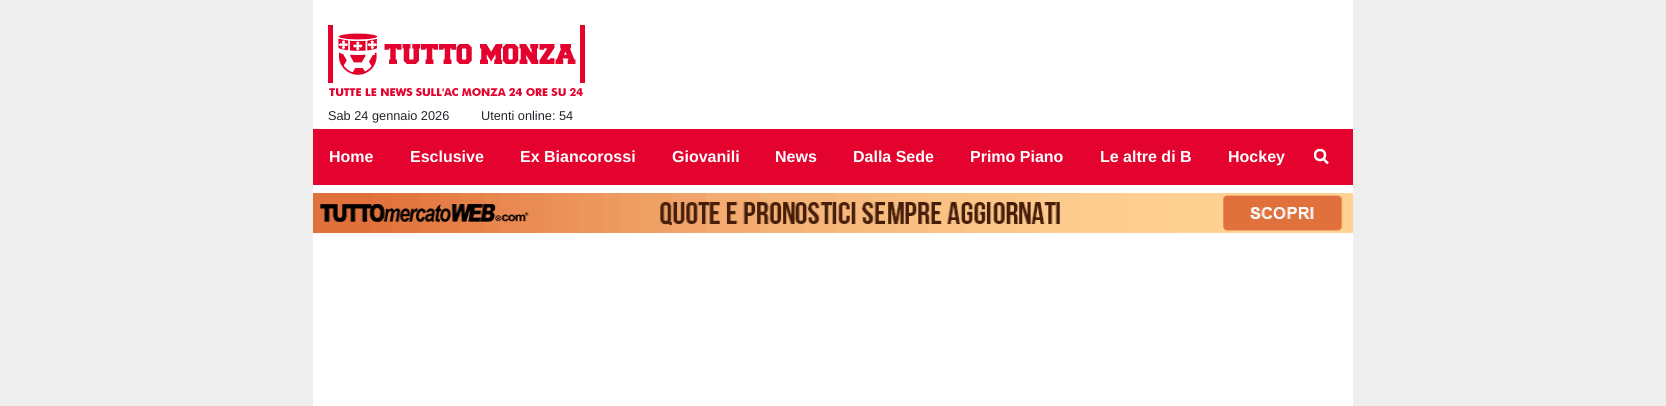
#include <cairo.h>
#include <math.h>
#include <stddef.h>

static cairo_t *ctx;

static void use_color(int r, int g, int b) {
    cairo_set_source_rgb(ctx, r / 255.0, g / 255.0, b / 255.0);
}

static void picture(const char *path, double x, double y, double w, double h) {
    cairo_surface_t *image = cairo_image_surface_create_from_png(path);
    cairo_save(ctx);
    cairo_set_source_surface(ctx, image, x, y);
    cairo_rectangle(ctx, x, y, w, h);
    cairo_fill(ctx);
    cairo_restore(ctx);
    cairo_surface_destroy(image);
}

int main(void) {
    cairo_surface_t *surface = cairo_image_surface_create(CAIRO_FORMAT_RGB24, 1666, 406);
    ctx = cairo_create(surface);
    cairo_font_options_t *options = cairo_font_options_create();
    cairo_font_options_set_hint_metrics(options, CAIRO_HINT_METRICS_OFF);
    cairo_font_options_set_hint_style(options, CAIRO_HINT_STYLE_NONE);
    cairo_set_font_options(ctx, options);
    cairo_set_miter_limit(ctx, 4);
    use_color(238, 238, 238);
    cairo_paint(ctx);
    use_color(255, 255, 255);
    cairo_rectangle(ctx, 313, 0, 1040, 406);
    cairo_fill(ctx);
    picture("img1.png", 328, 25, 257, 71);
    cairo_select_font_face(ctx, "Liberation Sans", CAIRO_FONT_SLANT_NORMAL, CAIRO_FONT_WEIGHT_NORMAL);
    cairo_set_font_size(ctx, 12.75);
    use_color(33, 37, 41);
    cairo_move_to(ctx, 328, 120);
    cairo_show_text(ctx, "Sab 24 gennaio 2026");
    cairo_move_to(ctx, 481, 120);
    cairo_show_text(ctx, "Utenti online: 54");
    use_color(228, 2, 46);
    cairo_rectangle(ctx, 313, 129, 1040, 56);
    cairo_fill(ctx);
    cairo_select_font_face(ctx, "Liberation Sans", CAIRO_FONT_SLANT_NORMAL, CAIRO_FONT_WEIGHT_BOLD);
    cairo_set_font_size(ctx, 16);
    use_color(255, 255, 255);
    cairo_move_to(ctx, 329, 162);
    cairo_show_text(ctx, "Home");
    cairo_move_to(ctx, 410, 162);
    cairo_show_text(ctx, "Esclusive");
    cairo_move_to(ctx, 520, 162);
    cairo_show_text(ctx, "Ex Biancorossi");
    cairo_move_to(ctx, 672, 162);
    cairo_show_text(ctx, "Giovanili");
    cairo_move_to(ctx, 775, 162);
    cairo_show_text(ctx, "News");
    cairo_move_to(ctx, 853, 162);
    cairo_show_text(ctx, "Dalla Sede");
    cairo_move_to(ctx, 970, 162);
    cairo_show_text(ctx, "Primo Piano");
    cairo_move_to(ctx, 1100, 162);
    cairo_show_text(ctx, "Le altre di B");
    cairo_move_to(ctx, 1228, 162);
    cairo_show_text(ctx, "Hockey");
    cairo_new_path(ctx);
    cairo_move_to(ctx, 1328, 163.5);
    cairo_line_to(ctx, 1323, 158.5);
    cairo_set_line_width(ctx, 2.5);
    cairo_stroke(ctx);
    cairo_save(ctx);
    cairo_rectangle(ctx, 1314, 149, 14, 16);
    cairo_clip(ctx);
    cairo_arc(ctx, 1320, 155, 5, 0, 2 * M_PI);
    cairo_stroke(ctx);
    cairo_restore(ctx);
    picture("img2.png", 313, 193, 1040, 40);
    cairo_surface_write_to_png(surface, "result.png");
    cairo_font_options_destroy(options);
    cairo_destroy(ctx);
    cairo_surface_destroy(surface);
    return 0;
}
